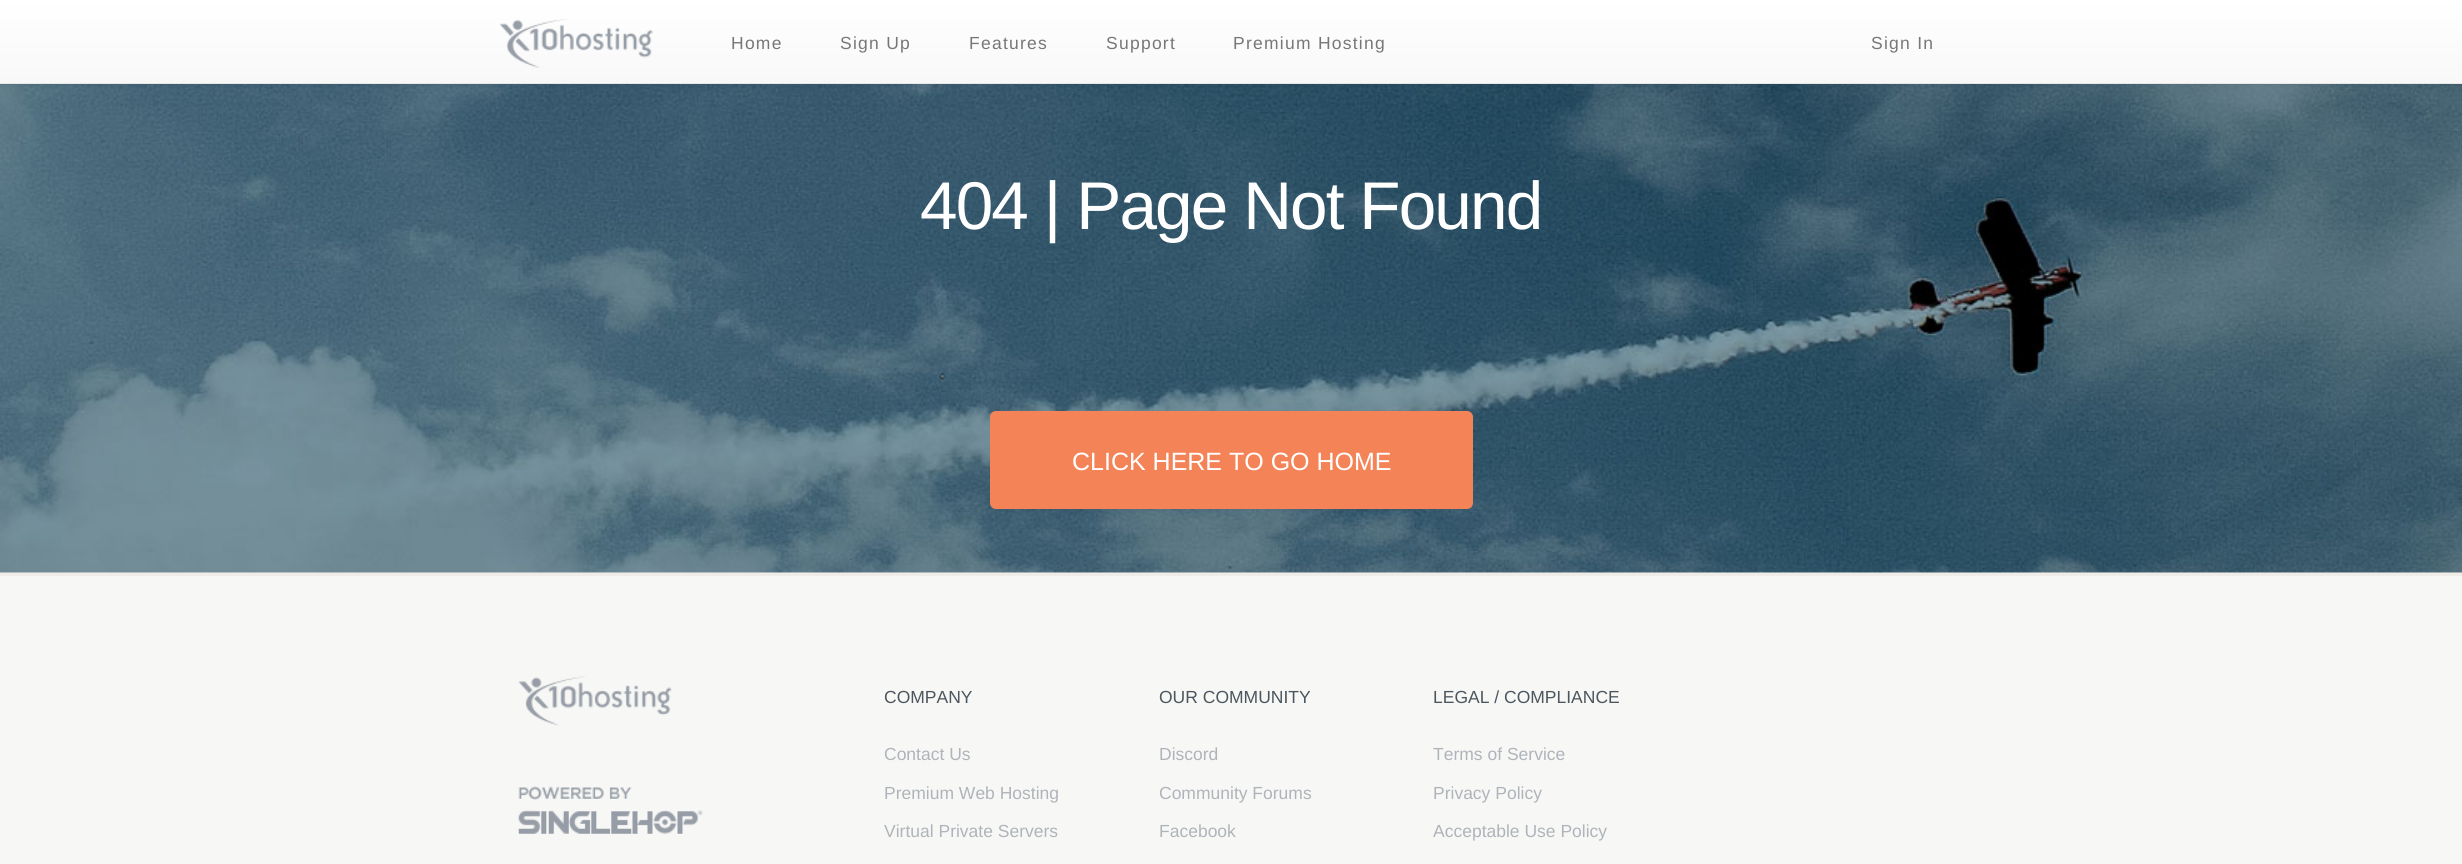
#include <cairo.h>
#include <math.h>
#include <stddef.h>

static cairo_t *ctx;

static void use_color(int r, int g, int b) {
    cairo_set_source_rgb(ctx, r / 255.0, g / 255.0, b / 255.0);
}

static void spaced_text(double x, double y, const char *s, double letter, double word) {
    cairo_move_to(ctx, x, y);
    while (*s) {
        char ch[5] = {0};
        int n = 0;
        do ch[n++] = *s++; while ((*s & 0xC0) == 0x80);
        cairo_show_text(ctx, ch);
        cairo_rel_move_to(ctx, letter + word * (*ch == ' '), 0);
    }
}

static void round_rect(double x, double y, double w, double h, double r) {
    cairo_new_sub_path(ctx);
    cairo_arc(ctx, x + w - r, y + h - r, r, 0, M_PI / 2);
    cairo_arc(ctx, x + r, y + h - r, r, M_PI / 2, M_PI);
    cairo_arc(ctx, x + r, y + r, r, M_PI, 1.5 * M_PI);
    cairo_arc(ctx, x + w - r, y + r, r, 1.5 * M_PI, 2 * M_PI);
    cairo_close_path(ctx);
}

static void shadow(double x, double y, double w, double h, double r, double blur, double alpha) {
    cairo_push_group_with_content(ctx, CAIRO_CONTENT_ALPHA);
    cairo_set_operator(ctx, CAIRO_OPERATOR_SOURCE);
    for (int i = 15; i >= -15 && fmin(w, h) + blur * i / 3 > 0; i -= 2) {
        double e = blur * i / 6;
        cairo_set_source_rgba(ctx, 0, 0, 0, alpha * erfc((i - 1) / 8.5) / 2);
        round_rect(x - e, y - e, w + 2 * e, h + 2 * e, fmax(0, fmin(r + e + blur * .6, fmin(w, h) / 2 + e)));
        cairo_fill(ctx);
    }
    cairo_pattern_t *soft = cairo_pop_group(ctx);
    cairo_mask(ctx, soft);
    cairo_pattern_destroy(soft);
}

static void picture(const char *path, double x, double y, double w, double h) {
    cairo_surface_t *image = cairo_image_surface_create_from_png(path);
    cairo_save(ctx);
    cairo_set_source_surface(ctx, image, x, y);
    cairo_rectangle(ctx, x, y, w, h);
    cairo_fill(ctx);
    cairo_restore(ctx);
    cairo_surface_destroy(image);
}

int main(void) {
    cairo_surface_t *surface = cairo_image_surface_create(CAIRO_FORMAT_RGB24, 2462, 864);
    ctx = cairo_create(surface);
    cairo_font_options_t *options = cairo_font_options_create();
    cairo_font_options_set_hint_metrics(options, CAIRO_HINT_METRICS_OFF);
    cairo_font_options_set_hint_style(options, CAIRO_HINT_STYLE_NONE);
    cairo_set_font_options(ctx, options);
    cairo_set_miter_limit(ctx, 4);
    cairo_pattern_t *gradient;
    use_color(247, 247, 245);
    cairo_paint(ctx);
    picture("img2.png", 0, 84, 2462, 489);
    use_color(0, 0, 0);
    shadow(0, 1, 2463, 84, 0, 3, 0.07);
    gradient = cairo_pattern_create_linear(1231, 0, 1231, 83);
    cairo_pattern_add_color_stop_rgba(gradient, 0, 1, 1, 1, 1);
    cairo_pattern_add_color_stop_rgba(gradient, 1, 0.973, 0.973, 0.973, 1);
    cairo_set_source(ctx, gradient);
    cairo_pattern_destroy(gradient);
    cairo_rectangle(ctx, 0, 0, 2462, 83);
    cairo_fill(ctx);
    use_color(231, 231, 231);
    cairo_rectangle(ctx, 0, 83, 2462, 1);
    cairo_fill(ctx);
    picture("img1.png", 500, 19, 153, 49);
    cairo_select_font_face(ctx, "Liberation Sans", CAIRO_FONT_SLANT_NORMAL, CAIRO_FONT_WEIGHT_NORMAL);
    cairo_set_font_size(ctx, 17.5);
    use_color(119, 119, 119);
    spaced_text(731, 49, "Home", 1.25, 0);
    spaced_text(840, 49, "Sign Up", 1.25, 0);
    spaced_text(969, 49, "Features", 1.25, 0);
    spaced_text(1106, 49, "Support", 1.25, 0);
    spaced_text(1233, 49, "Premium Hosting", 1.25, 0);
    spaced_text(1871, 49, "Sign In", 1.25, 0);
    cairo_set_font_size(ctx, 67.5);
    use_color(255, 255, 255);
    spaced_text(920, 229, "404 | Page Not Found", -1.9, 0);
    use_color(245, 131, 88);
    round_rect(990, 411, 483, 98, 6);
    cairo_fill(ctx);
    cairo_set_font_size(ctx, 25);
    use_color(255, 255, 255);
    cairo_move_to(ctx, 1072, 470);
    cairo_show_text(ctx, "CLICK HERE TO GO HOME");
    use_color(240, 237, 233);
    cairo_rectangle(ctx, 0, 573, 2462, 3);
    cairo_fill(ctx);
    picture("img3.png", 518, 676, 154, 50);
    picture("img4.png", 518, 786, 185, 48);
    cairo_set_font_size(ctx, 17.5);
    use_color(76, 86, 94);
    cairo_move_to(ctx, 884, 703);
    cairo_show_text(ctx, "COMPANY");
    use_color(175, 180, 186);
    cairo_move_to(ctx, 884, 760);
    cairo_show_text(ctx, "Contact Us");
    cairo_move_to(ctx, 884, 799);
    cairo_show_text(ctx, "Premium Web Hosting");
    cairo_move_to(ctx, 884, 837);
    cairo_show_text(ctx, "Virtual Private Servers");
    use_color(76, 86, 94);
    cairo_move_to(ctx, 1159, 703);
    cairo_show_text(ctx, "OUR COMMUNITY");
    use_color(175, 180, 186);
    cairo_move_to(ctx, 1159, 760);
    cairo_show_text(ctx, "Discord");
    cairo_move_to(ctx, 1159, 799);
    cairo_show_text(ctx, "Community Forums");
    cairo_move_to(ctx, 1159, 837);
    cairo_show_text(ctx, "Facebook");
    use_color(76, 86, 94);
    cairo_move_to(ctx, 1433, 703);
    cairo_show_text(ctx, "LEGAL / COMPLIANCE");
    use_color(175, 180, 186);
    cairo_move_to(ctx, 1433, 760);
    cairo_show_text(ctx, "Terms of Service");
    cairo_move_to(ctx, 1433, 799);
    cairo_show_text(ctx, "Privacy Policy");
    cairo_move_to(ctx, 1433, 837);
    cairo_show_text(ctx, "Acceptable Use Policy");
    cairo_surface_write_to_png(surface, "result.png");
    cairo_font_options_destroy(options);
    cairo_destroy(ctx);
    cairo_surface_destroy(surface);
    return 0;
}
